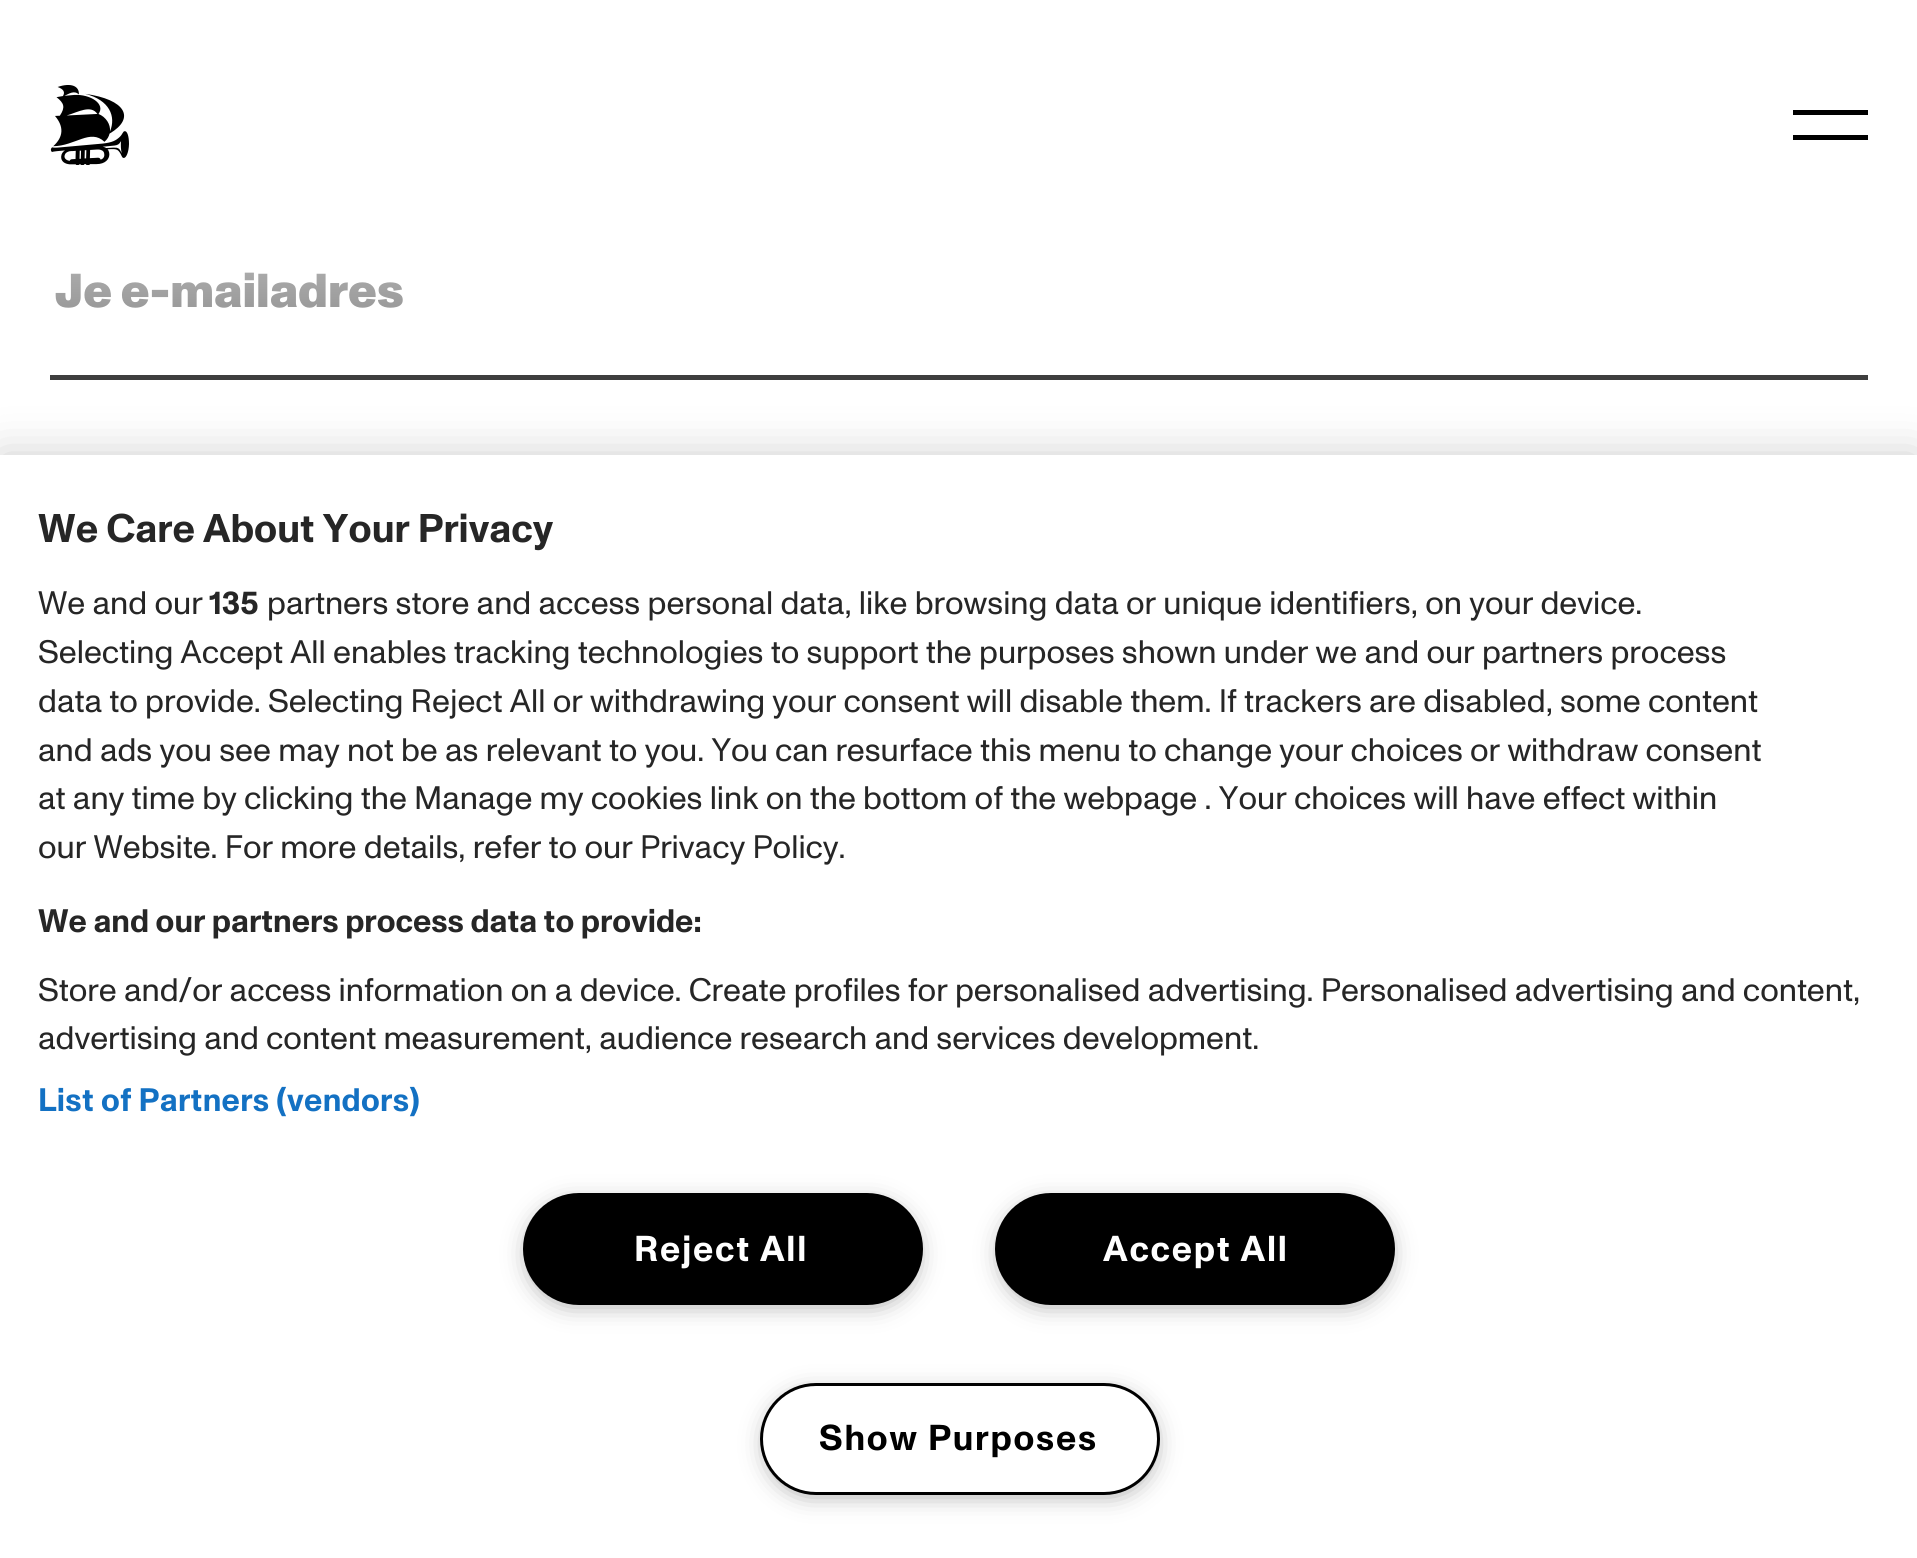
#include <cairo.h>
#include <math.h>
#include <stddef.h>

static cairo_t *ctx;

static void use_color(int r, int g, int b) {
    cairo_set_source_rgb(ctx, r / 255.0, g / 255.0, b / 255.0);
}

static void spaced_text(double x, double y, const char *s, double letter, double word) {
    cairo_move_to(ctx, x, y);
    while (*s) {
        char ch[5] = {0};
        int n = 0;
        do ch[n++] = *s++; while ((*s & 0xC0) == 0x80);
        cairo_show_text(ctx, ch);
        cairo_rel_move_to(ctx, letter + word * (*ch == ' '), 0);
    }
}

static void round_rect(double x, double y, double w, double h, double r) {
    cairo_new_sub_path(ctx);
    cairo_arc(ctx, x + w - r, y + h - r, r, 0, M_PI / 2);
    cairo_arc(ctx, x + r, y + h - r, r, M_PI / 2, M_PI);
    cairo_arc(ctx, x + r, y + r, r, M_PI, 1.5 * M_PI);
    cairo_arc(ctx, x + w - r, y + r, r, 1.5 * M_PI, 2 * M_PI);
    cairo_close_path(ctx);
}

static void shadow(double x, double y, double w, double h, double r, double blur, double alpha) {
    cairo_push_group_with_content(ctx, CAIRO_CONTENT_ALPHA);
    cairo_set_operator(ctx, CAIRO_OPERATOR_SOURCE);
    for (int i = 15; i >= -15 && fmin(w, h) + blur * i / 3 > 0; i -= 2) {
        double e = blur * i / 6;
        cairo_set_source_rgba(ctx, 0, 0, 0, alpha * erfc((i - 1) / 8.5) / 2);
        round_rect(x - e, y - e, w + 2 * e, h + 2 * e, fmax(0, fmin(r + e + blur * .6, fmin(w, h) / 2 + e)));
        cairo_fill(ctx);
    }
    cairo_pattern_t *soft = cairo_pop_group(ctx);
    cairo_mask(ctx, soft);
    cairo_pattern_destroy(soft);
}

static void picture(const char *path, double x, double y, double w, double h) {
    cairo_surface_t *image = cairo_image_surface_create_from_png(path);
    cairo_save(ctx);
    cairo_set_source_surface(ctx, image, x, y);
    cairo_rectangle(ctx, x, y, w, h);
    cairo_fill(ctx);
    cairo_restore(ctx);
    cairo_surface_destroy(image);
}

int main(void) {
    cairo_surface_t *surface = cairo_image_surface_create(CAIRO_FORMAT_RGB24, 1917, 1558);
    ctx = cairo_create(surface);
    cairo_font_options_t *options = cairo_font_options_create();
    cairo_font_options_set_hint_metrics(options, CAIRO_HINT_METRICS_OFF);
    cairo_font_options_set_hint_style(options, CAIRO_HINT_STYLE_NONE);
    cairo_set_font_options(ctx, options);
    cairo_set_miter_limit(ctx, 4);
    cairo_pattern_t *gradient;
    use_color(255, 255, 255);
    cairo_paint(ctx);
    picture("img1.png", 50, 85, 79, 80);
    use_color(0, 0, 0);
    cairo_rectangle(ctx, 1793, 110, 75, 5);
    cairo_fill(ctx);
    cairo_rectangle(ctx, 1793, 135, 75, 5);
    cairo_fill(ctx);
    use_color(62, 62, 62);
    cairo_rectangle(ctx, 50, 375, 1818, 5);
    cairo_fill(ctx);
    cairo_select_font_face(ctx, "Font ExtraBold", CAIRO_FONT_SLANT_NORMAL, CAIRO_FONT_WEIGHT_NORMAL);
    cairo_set_font_size(ctx, 47.5);
    use_color(128, 128, 128);
    cairo_move_to(ctx, 55, 307);
    cairo_show_text(ctx, "Je e-mailadres");
    gradient = cairo_pattern_create_linear(959, 0, 959, 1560);
    cairo_pattern_add_color_stop_rgba(gradient, 0.04, 1, 1, 1, 1);
    cairo_pattern_add_color_stop_rgba(gradient, 0.24, 1, 1, 1, 0);
    cairo_set_source(ctx, gradient);
    cairo_pattern_destroy(gradient);
    cairo_rectangle(ctx, 55, 272, 348, 36);
    cairo_fill(ctx);
    use_color(0, 0, 0);
    shadow(0, 455, 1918, 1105, 0, 22.5, 0.2);
    use_color(255, 255, 255);
    cairo_rectangle(ctx, 0, 455, 1917, 1103);
    cairo_fill(ctx);
    cairo_select_font_face(ctx, "Font", CAIRO_FONT_SLANT_NORMAL, CAIRO_FONT_WEIGHT_BOLD);
    cairo_set_font_size(ctx, 40);
    use_color(38, 38, 38);
    cairo_move_to(ctx, 38, 542);
    cairo_show_text(ctx, "We Care About Your Privacy");
    cairo_select_font_face(ctx, "Font", CAIRO_FONT_SLANT_NORMAL, CAIRO_FONT_WEIGHT_NORMAL);
    cairo_set_font_size(ctx, 32.52);
    cairo_move_to(ctx, 38, 614);
    cairo_show_text(ctx, "We and our");
    cairo_select_font_face(ctx, "Font", CAIRO_FONT_SLANT_NORMAL, CAIRO_FONT_WEIGHT_BOLD);
    cairo_move_to(ctx, 209, 614);
    cairo_show_text(ctx, "135");
    cairo_select_font_face(ctx, "Font", CAIRO_FONT_SLANT_NORMAL, CAIRO_FONT_WEIGHT_NORMAL);
    cairo_move_to(ctx, 267, 614);
    cairo_show_text(ctx, "partners store and access personal data, like browsing data or unique identifiers, on your device.");
    cairo_move_to(ctx, 38, 663);
    cairo_show_text(ctx, "Selecting Accept All enables tracking technologies to support the purposes shown under we and our partners process");
    cairo_move_to(ctx, 38, 712);
    cairo_show_text(ctx, "data to provide. Selecting Reject All or withdrawing your consent will disable them. If trackers are disabled, some content");
    cairo_move_to(ctx, 38, 761);
    cairo_show_text(ctx, "and ads you see may not be as relevant to you. You can resurface this menu to change your choices or withdraw consent");
    cairo_move_to(ctx, 38, 809);
    cairo_show_text(ctx, "at any time by clicking the Manage my cookies link on the bottom of the webpage . Your choices will have effect within");
    cairo_move_to(ctx, 38, 858);
    cairo_show_text(ctx, "our Website. For more details, refer to our Privacy Policy.");
    cairo_select_font_face(ctx, "Font", CAIRO_FONT_SLANT_NORMAL, CAIRO_FONT_WEIGHT_BOLD);
    cairo_move_to(ctx, 38, 932);
    cairo_show_text(ctx, "We and our partners process data to provide:");
    cairo_select_font_face(ctx, "Font", CAIRO_FONT_SLANT_NORMAL, CAIRO_FONT_WEIGHT_NORMAL);
    cairo_move_to(ctx, 38, 1001);
    cairo_show_text(ctx, "Store and/or access information on a device. Create profiles for personalised advertising. Personalised advertising and content,");
    cairo_move_to(ctx, 38, 1049);
    cairo_show_text(ctx, "advertising and content measurement, audience research and services development.");
    cairo_select_font_face(ctx, "Font", CAIRO_FONT_SLANT_NORMAL, CAIRO_FONT_WEIGHT_BOLD);
    use_color(19, 113, 195);
    spaced_text(38, 1111, "List of Partners (vendors)", 0.3, 0);
    use_color(153, 153, 153);
    shadow(530, 1205, 385, 98, 49, 12.5, 1);
    use_color(0, 0, 0);
    round_rect(524.5, 1194.5, 397, 109, 54.5);
    cairo_fill_preserve(ctx);
    cairo_set_line_width(ctx, 3);
    cairo_stroke(ctx);
    cairo_set_font_size(ctx, 36);
    use_color(255, 255, 255);
    spaced_text(634, 1261, "Reject All", 1.75, 0);
    use_color(153, 153, 153);
    shadow(1003, 1205, 385, 98, 49, 12.5, 1);
    use_color(0, 0, 0);
    round_rect(996.5, 1194.5, 397, 109, 54.5);
    cairo_fill_preserve(ctx);
    cairo_stroke(ctx);
    use_color(255, 255, 255);
    spaced_text(1103, 1261, "Accept All", 1.75, 0);
    use_color(153, 153, 153);
    shadow(768, 1395, 385, 98, 49, 12.5, 1);
    use_color(255, 255, 255);
    round_rect(761.5, 1384.5, 397, 109, 54.5);
    cairo_fill_preserve(ctx);
    use_color(0, 0, 0);
    cairo_stroke(ctx);
    spaced_text(819, 1450, "Show Purposes", 1.75, 0);
    cairo_surface_write_to_png(surface, "result.png");
    cairo_font_options_destroy(options);
    cairo_destroy(ctx);
    cairo_surface_destroy(surface);
    return 0;
}
